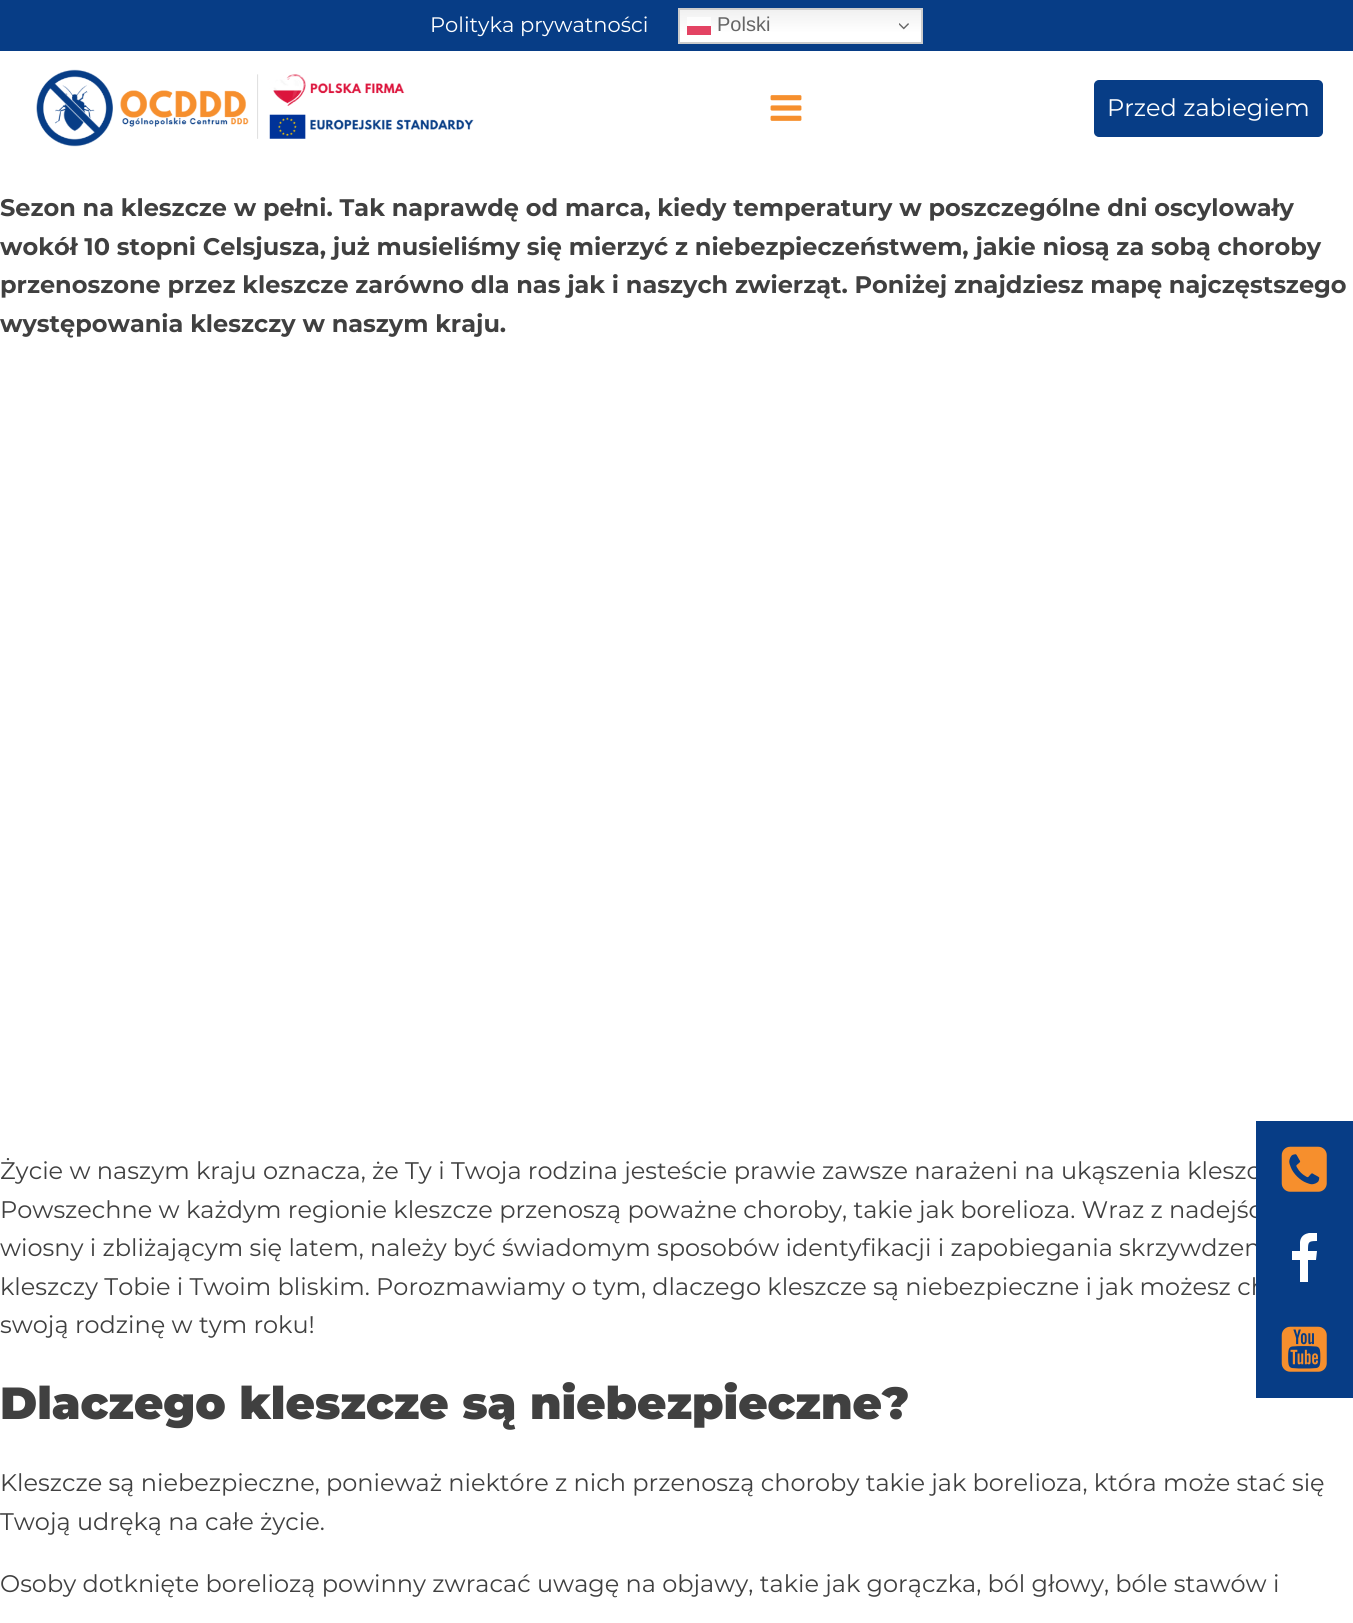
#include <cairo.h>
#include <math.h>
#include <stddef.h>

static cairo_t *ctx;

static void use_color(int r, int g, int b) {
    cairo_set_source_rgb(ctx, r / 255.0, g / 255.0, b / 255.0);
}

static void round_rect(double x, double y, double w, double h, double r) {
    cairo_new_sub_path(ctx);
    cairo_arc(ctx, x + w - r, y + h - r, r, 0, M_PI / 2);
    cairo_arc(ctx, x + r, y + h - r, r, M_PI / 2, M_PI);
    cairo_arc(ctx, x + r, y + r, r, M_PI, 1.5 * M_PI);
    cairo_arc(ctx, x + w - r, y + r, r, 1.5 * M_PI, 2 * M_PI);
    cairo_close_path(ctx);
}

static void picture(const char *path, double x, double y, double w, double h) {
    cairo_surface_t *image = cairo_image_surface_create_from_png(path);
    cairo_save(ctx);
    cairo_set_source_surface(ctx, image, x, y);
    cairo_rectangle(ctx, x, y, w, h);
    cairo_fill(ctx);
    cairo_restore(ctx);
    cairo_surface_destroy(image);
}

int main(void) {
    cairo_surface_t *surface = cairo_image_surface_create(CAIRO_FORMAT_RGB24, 1353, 1623);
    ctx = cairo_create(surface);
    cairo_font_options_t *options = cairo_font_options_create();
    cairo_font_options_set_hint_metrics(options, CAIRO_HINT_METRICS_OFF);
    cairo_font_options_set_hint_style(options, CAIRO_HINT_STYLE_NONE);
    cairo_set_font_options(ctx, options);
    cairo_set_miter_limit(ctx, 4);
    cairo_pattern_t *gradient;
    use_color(255, 255, 255);
    cairo_paint(ctx);
    use_color(7, 61, 134);
    cairo_rectangle(ctx, 0, 0, 1353, 51);
    cairo_fill(ctx);
    cairo_select_font_face(ctx, "Montserrat", CAIRO_FONT_SLANT_NORMAL, CAIRO_FONT_WEIGHT_NORMAL);
    cairo_set_font_size(ctx, 21);
    use_color(255, 255, 255);
    cairo_move_to(ctx, 430, 32);
    cairo_show_text(ctx, "Polityka prywatności");
    gradient = cairo_pattern_create_linear(800, 7.5, 800, 44);
    cairo_pattern_add_color_stop_rgba(gradient, 0, 0.937, 0.937, 0.937, 1);
    cairo_pattern_add_color_stop_rgba(gradient, 0.7, 1, 1, 1, 1);
    cairo_set_source(ctx, gradient);
    cairo_pattern_destroy(gradient);
    cairo_rectangle(ctx, 680, 10, 241, 32);
    cairo_fill(ctx);
    gradient = cairo_pattern_create_linear(800, 7.5, 800, 44);
    cairo_pattern_add_color_stop_rgba(gradient, 0, 0.988, 0.988, 0.988, 1);
    cairo_pattern_add_color_stop_rgba(gradient, 0.7, 1, 1, 1, 1);
    cairo_set_source(ctx, gradient);
    cairo_pattern_destroy(gradient);
    cairo_rectangle(ctx, 687, 17, 24, 9);
    cairo_fill(ctx);
    cairo_rectangle(ctx, 679, 9, 243, 34);
    use_color(204, 204, 204);
    cairo_stroke(ctx);
    use_color(227, 67, 99);
    cairo_rectangle(ctx, 687, 26, 24, 9);
    cairo_fill(ctx);
    cairo_select_font_face(ctx, "Liberation Sans", CAIRO_FONT_SLANT_NORMAL, CAIRO_FONT_WEIGHT_NORMAL);
    cairo_set_font_size(ctx, 20);
    use_color(102, 102, 102);
    cairo_move_to(ctx, 717, 31);
    cairo_show_text(ctx, "Polski");
    picture("img1.png", 899, 23, 10, 7);
    cairo_select_font_face(ctx, "Montserrat", CAIRO_FONT_SLANT_NORMAL, CAIRO_FONT_WEIGHT_NORMAL);
    cairo_set_font_size(ctx, 24);
    use_color(64, 64, 64);
    cairo_move_to(ctx, 0, 1179);
    cairo_show_text(ctx, "Życie w naszym kraju oznacza, że Ty i Twoja rodzina jesteście prawie zawsze narażeni na ukąszenia kleszc");
    cairo_move_to(ctx, 0, 1218);
    cairo_show_text(ctx, "Powszechne w każdym regionie kleszcze przenoszą poważne choroby, takie jak borelioza. Wraz z nadejśc");
    cairo_move_to(ctx, 0, 1256);
    cairo_show_text(ctx, "wiosny i zbliżającym się latem, należy być świadomym sposobów identyfikacji i zapobiegania skrzywdzen");
    cairo_move_to(ctx, 0, 1295);
    cairo_show_text(ctx, "kleszczy Tobie i Twoim bliskim. Porozmawiamy o tym, dlaczego kleszcze są niebezpieczne i jak możesz ch");
    use_color(7, 61, 134);
    cairo_rectangle(ctx, 1256, 1121, 97, 277);
    cairo_fill(ctx);
    picture("img2.png", 1281, 1146, 46, 46);
    cairo_save(ctx);
    cairo_rectangle(ctx, 1278, 1233, 53, 53);
    cairo_clip(ctx);
    use_color(255, 255, 255);
    cairo_new_path(ctx);
    cairo_move_to(ctx, 1317, 1233);
    cairo_line_to(ctx, 1317, 1241);
    cairo_curve_to(ctx, 1308, 1241, 1308, 1242, 1308, 1251);
    cairo_line_to(ctx, 1317, 1251);
    cairo_line_to(ctx, 1316, 1260);
    cairo_line_to(ctx, 1308, 1260);
    cairo_line_to(ctx, 1308, 1282);
    cairo_line_to(ctx, 1300, 1282);
    cairo_line_to(ctx, 1300, 1260);
    cairo_line_to(ctx, 1292, 1260);
    cairo_line_to(ctx, 1292, 1251);
    cairo_line_to(ctx, 1300, 1251);
    cairo_line_to(ctx, 1300, 1242);
    cairo_curve_to(ctx, 1301, 1233, 1310, 1232, 1317, 1233);
    cairo_close_path(ctx);
    cairo_fill(ctx);
    cairo_restore(ctx);
    picture("img3.png", 1281, 1326, 46, 46);
    picture("img4.png", 36, 69, 438, 78);
    picture("img5.png", 770, 95, 32, 26);
    round_rect(1095, 81, 227, 55, 4);
    cairo_fill_preserve(ctx);
    cairo_stroke(ctx);
    use_color(255, 255, 255);
    cairo_move_to(ctx, 1107, 116);
    cairo_show_text(ctx, "Przed zabiegiem");
    cairo_select_font_face(ctx, "Montserrat", CAIRO_FONT_SLANT_NORMAL, CAIRO_FONT_WEIGHT_BOLD);
    use_color(64, 64, 64);
    cairo_move_to(ctx, 0, 216);
    cairo_show_text(ctx, "Sezon na kleszcze w pełni. Tak naprawdę od marca, kiedy temperatury w poszczególne dni oscylowały");
    cairo_move_to(ctx, 0, 255);
    cairo_show_text(ctx, "wokół 10 stopni Celsjusza, już musieliśmy się mierzyć z niebezpieczeństwem, jakie niosą za sobą choroby");
    cairo_move_to(ctx, 0, 293);
    cairo_show_text(ctx, "przenoszone przez kleszcze zarówno dla nas jak i naszych zwierząt. Poniżej znajdziesz mapę najczęstszego");
    cairo_move_to(ctx, 0, 332);
    cairo_show_text(ctx, "występowania kleszczy w naszym kraju.");
    cairo_select_font_face(ctx, "Montserrat", CAIRO_FONT_SLANT_NORMAL, CAIRO_FONT_WEIGHT_NORMAL);
    cairo_move_to(ctx, 0, 1333);
    cairo_show_text(ctx, "swoją rodzinę w tym roku!");
    cairo_select_font_face(ctx, "Montserrat Black", CAIRO_FONT_SLANT_NORMAL, CAIRO_FONT_WEIGHT_NORMAL);
    cairo_set_font_size(ctx, 45);
    cairo_move_to(ctx, 0, 1419);
    cairo_show_text(ctx, "Dlaczego kleszcze są niebezpieczne?");
    cairo_select_font_face(ctx, "Montserrat", CAIRO_FONT_SLANT_NORMAL, CAIRO_FONT_WEIGHT_NORMAL);
    cairo_set_font_size(ctx, 24);
    cairo_move_to(ctx, 0, 1491);
    cairo_show_text(ctx, "Kleszcze są niebezpieczne, ponieważ niektóre z nich przenoszą choroby takie jak borelioza, która może stać się");
    cairo_move_to(ctx, 0, 1530);
    cairo_show_text(ctx, "Twoją udręką na całe życie.");
    cairo_move_to(ctx, 0, 1592);
    cairo_show_text(ctx, "Osoby dotknięte boreliozą powinny zwracać uwagę na objawy, takie jak gorączka, ból głowy, bóle stawów i");
    cairo_surface_write_to_png(surface, "result.png");
    cairo_font_options_destroy(options);
    cairo_destroy(ctx);
    cairo_surface_destroy(surface);
    return 0;
}
